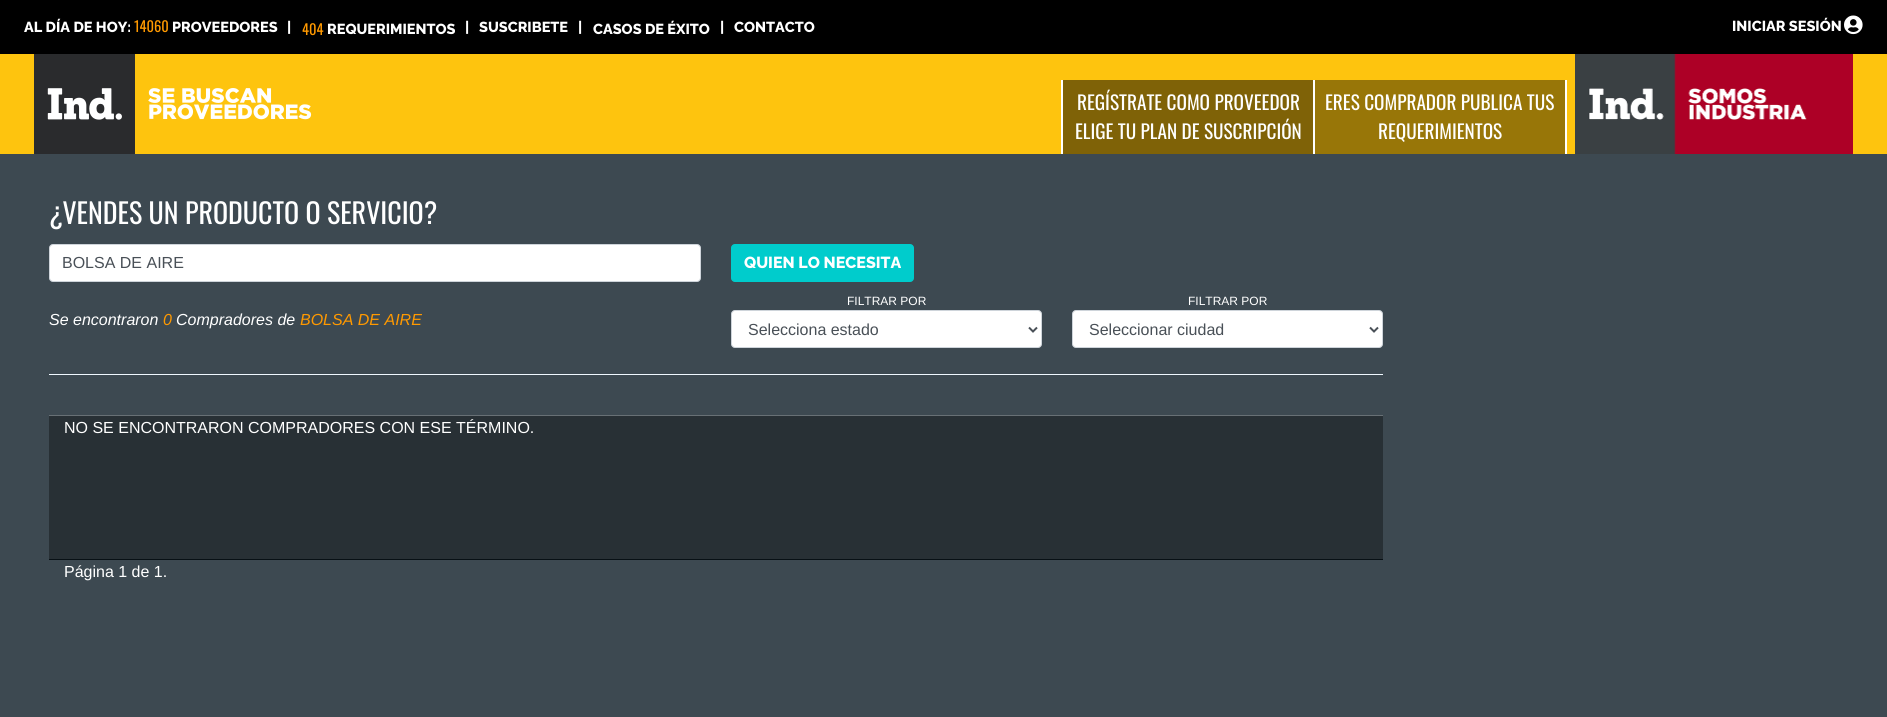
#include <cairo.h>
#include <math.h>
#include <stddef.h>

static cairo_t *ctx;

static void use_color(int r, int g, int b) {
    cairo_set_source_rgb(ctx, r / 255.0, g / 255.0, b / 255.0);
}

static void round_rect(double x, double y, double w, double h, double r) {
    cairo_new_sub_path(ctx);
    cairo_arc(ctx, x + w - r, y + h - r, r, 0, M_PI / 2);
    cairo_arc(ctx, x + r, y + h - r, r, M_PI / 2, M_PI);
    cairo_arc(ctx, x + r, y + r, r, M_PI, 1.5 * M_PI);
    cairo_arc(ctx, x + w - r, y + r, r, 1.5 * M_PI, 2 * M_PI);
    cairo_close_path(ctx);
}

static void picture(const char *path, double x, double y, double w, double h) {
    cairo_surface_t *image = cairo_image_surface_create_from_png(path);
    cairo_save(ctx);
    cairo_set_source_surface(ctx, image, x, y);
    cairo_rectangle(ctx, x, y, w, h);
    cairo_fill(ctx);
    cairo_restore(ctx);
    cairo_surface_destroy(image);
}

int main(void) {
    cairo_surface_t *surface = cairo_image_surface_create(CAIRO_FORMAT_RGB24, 1887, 717);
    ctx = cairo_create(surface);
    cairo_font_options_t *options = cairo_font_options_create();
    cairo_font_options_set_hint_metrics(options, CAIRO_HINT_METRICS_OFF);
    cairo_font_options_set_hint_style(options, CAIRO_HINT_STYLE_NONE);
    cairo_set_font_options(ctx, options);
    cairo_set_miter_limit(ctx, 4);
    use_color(61, 73, 81);
    cairo_paint(ctx);
    use_color(0, 0, 0);
    cairo_rectangle(ctx, 0, 0, 1887, 54);
    cairo_fill(ctx);
    cairo_select_font_face(ctx, "Raleway ExtraBold", CAIRO_FONT_SLANT_NORMAL, CAIRO_FONT_WEIGHT_NORMAL);
    cairo_set_font_size(ctx, 14.5);
    use_color(255, 255, 255);
    cairo_move_to(ctx, 24, 32);
    cairo_show_text(ctx, "AL DÍA DE HOY:");
    cairo_select_font_face(ctx, "Oswald", CAIRO_FONT_SLANT_NORMAL, CAIRO_FONT_WEIGHT_NORMAL);
    use_color(255, 153, 0);
    cairo_move_to(ctx, 134, 32);
    cairo_show_text(ctx, "14060");
    cairo_select_font_face(ctx, "Raleway ExtraBold", CAIRO_FONT_SLANT_NORMAL, CAIRO_FONT_WEIGHT_NORMAL);
    use_color(255, 255, 255);
    cairo_move_to(ctx, 172, 32);
    cairo_show_text(ctx, "PROVEEDORES");
    cairo_move_to(ctx, 287, 32);
    cairo_show_text(ctx, "|");
    cairo_select_font_face(ctx, "Oswald", CAIRO_FONT_SLANT_NORMAL, CAIRO_FONT_WEIGHT_NORMAL);
    use_color(255, 153, 0);
    cairo_move_to(ctx, 302, 35);
    cairo_show_text(ctx, "404");
    cairo_select_font_face(ctx, "Raleway ExtraBold", CAIRO_FONT_SLANT_NORMAL, CAIRO_FONT_WEIGHT_NORMAL);
    use_color(255, 255, 255);
    cairo_move_to(ctx, 327, 34);
    cairo_show_text(ctx, "REQUERIMIENTOS");
    cairo_move_to(ctx, 465, 32);
    cairo_show_text(ctx, "|");
    cairo_move_to(ctx, 479, 32);
    cairo_show_text(ctx, "SUSCRIBETE");
    cairo_move_to(ctx, 578, 32);
    cairo_show_text(ctx, "|");
    cairo_move_to(ctx, 593, 34);
    cairo_show_text(ctx, "CASOS DE ÉXITO");
    cairo_move_to(ctx, 720, 32);
    cairo_show_text(ctx, "|");
    cairo_move_to(ctx, 734, 32);
    cairo_show_text(ctx, "CONTACTO");
    cairo_move_to(ctx, 1732, 31);
    cairo_show_text(ctx, "INICIAR SESIÓN");
    picture("img1.png", 1844, 15, 19, 20);
    use_color(254, 196, 14);
    cairo_rectangle(ctx, 0, 54, 1887, 100);
    cairo_fill(ctx);
    picture("img2.png", 34, 54, 278, 100);
    use_color(255, 255, 255);
    cairo_rectangle(ctx, 1061, 80, 2, 74);
    cairo_fill(ctx);
    use_color(127, 98, 7);
    cairo_rectangle(ctx, 1063, 80, 250, 74);
    cairo_fill(ctx);
    cairo_select_font_face(ctx, "Oswald", CAIRO_FONT_SLANT_NORMAL, CAIRO_FONT_WEIGHT_NORMAL);
    cairo_set_font_size(ctx, 19.25);
    use_color(255, 255, 255);
    cairo_move_to(ctx, 1077, 110);
    cairo_show_text(ctx, "REGÍSTRATE COMO PROVEEDOR");
    cairo_move_to(ctx, 1075, 139);
    cairo_show_text(ctx, "ELIGE TU PLAN DE SUSCRIPCIÓN");
    cairo_rectangle(ctx, 1313, 80, 2, 74);
    cairo_fill(ctx);
    use_color(152, 118, 8);
    cairo_rectangle(ctx, 1315, 80, 250, 74);
    cairo_fill(ctx);
    use_color(255, 255, 255);
    cairo_move_to(ctx, 1325, 110);
    cairo_show_text(ctx, "ERES COMPRADOR PUBLICA TUS");
    cairo_move_to(ctx, 1378, 139);
    cairo_show_text(ctx, "REQUERIMIENTOS");
    cairo_rectangle(ctx, 1565, 80, 2, 74);
    cairo_fill(ctx);
    picture("img3.png", 1575, 54, 278, 100);
    cairo_set_font_size(ctx, 28);
    cairo_move_to(ctx, 49, 224);
    cairo_show_text(ctx, "¿VENDES UN PRODUCTO O SERVICIO?");
    round_rect(49.5, 244.5, 651, 37, 3.5);
    cairo_fill_preserve(ctx);
    use_color(206, 212, 218);
    cairo_set_line_width(ctx, 1);
    cairo_stroke(ctx);
    cairo_select_font_face(ctx, "Liberation Sans", CAIRO_FONT_SLANT_NORMAL, CAIRO_FONT_WEIGHT_NORMAL);
    cairo_set_font_size(ctx, 16);
    use_color(73, 80, 87);
    cairo_move_to(ctx, 62, 268);
    cairo_show_text(ctx, "BOLSA DE AIRE");
    use_color(0, 204, 204);
    round_rect(731.5, 244.5, 182, 37, 3.5);
    cairo_fill_preserve(ctx);
    cairo_stroke(ctx);
    cairo_select_font_face(ctx, "Raleway ExtraBold", CAIRO_FONT_SLANT_NORMAL, CAIRO_FONT_WEIGHT_NORMAL);
    use_color(255, 255, 255);
    cairo_move_to(ctx, 744, 268);
    cairo_show_text(ctx, "QUIEN LO NECESITA");
    cairo_select_font_face(ctx, "Liberation Sans", CAIRO_FONT_SLANT_ITALIC, CAIRO_FONT_WEIGHT_NORMAL);
    cairo_move_to(ctx, 49, 325);
    cairo_show_text(ctx, "Se encontraron");
    use_color(255, 153, 0);
    cairo_move_to(ctx, 163, 325);
    cairo_show_text(ctx, "0");
    use_color(255, 255, 255);
    cairo_move_to(ctx, 176, 325);
    cairo_show_text(ctx, "Compradores de");
    use_color(255, 153, 0);
    cairo_move_to(ctx, 300, 325);
    cairo_show_text(ctx, "BOLSA DE AIRE");
    cairo_select_font_face(ctx, "Liberation Sans", CAIRO_FONT_SLANT_NORMAL, CAIRO_FONT_WEIGHT_NORMAL);
    cairo_set_font_size(ctx, 12);
    use_color(255, 255, 255);
    cairo_move_to(ctx, 847, 305);
    cairo_show_text(ctx, "FILTRAR POR");
    round_rect(731.5, 310.5, 310, 37, 3.5);
    cairo_fill_preserve(ctx);
    use_color(206, 212, 218);
    cairo_stroke(ctx);
    cairo_new_path(ctx);
    cairo_move_to(ctx, 1029, 327.5);
    cairo_line_to(ctx, 1033, 331.5);
    cairo_line_to(ctx, 1037, 327.5);
    use_color(73, 80, 87);
    cairo_set_line_width(ctx, 2);
    cairo_stroke(ctx);
    cairo_set_font_size(ctx, 16);
    cairo_move_to(ctx, 748, 335);
    cairo_show_text(ctx, "Selecciona estado");
    cairo_set_font_size(ctx, 12);
    use_color(255, 255, 255);
    cairo_move_to(ctx, 1188, 305);
    cairo_show_text(ctx, "FILTRAR POR");
    round_rect(1072.5, 310.5, 310, 37, 3.5);
    cairo_fill_preserve(ctx);
    use_color(206, 212, 218);
    cairo_set_line_width(ctx, 1);
    cairo_stroke(ctx);
    cairo_new_path(ctx);
    cairo_move_to(ctx, 1370, 327.5);
    cairo_line_to(ctx, 1374, 331.5);
    cairo_line_to(ctx, 1378, 327.5);
    use_color(73, 80, 87);
    cairo_set_line_width(ctx, 2);
    cairo_stroke(ctx);
    cairo_set_font_size(ctx, 16);
    cairo_move_to(ctx, 1089, 335);
    cairo_show_text(ctx, "Seleccionar ciudad");
    use_color(240, 248, 255);
    cairo_rectangle(ctx, 49, 374, 1334, 1);
    cairo_fill(ctx);
    use_color(40, 48, 53);
    cairo_rectangle(ctx, 49, 416, 1334, 143);
    cairo_fill(ctx);
    use_color(104, 112, 117);
    cairo_rectangle(ctx, 49, 415, 1334, 1);
    cairo_fill(ctx);
    use_color(8, 16, 21);
    cairo_rectangle(ctx, 49, 559, 1334, 1);
    cairo_fill(ctx);
    use_color(255, 255, 255);
    cairo_move_to(ctx, 64, 433);
    cairo_show_text(ctx, "NO SE ENCONTRARON COMPRADORES CON ESE TÉRMINO.");
    cairo_move_to(ctx, 64, 577);
    cairo_show_text(ctx, "Página 1 de 1.");
    cairo_surface_write_to_png(surface, "result.png");
    cairo_font_options_destroy(options);
    cairo_destroy(ctx);
    cairo_surface_destroy(surface);
    return 0;
}
